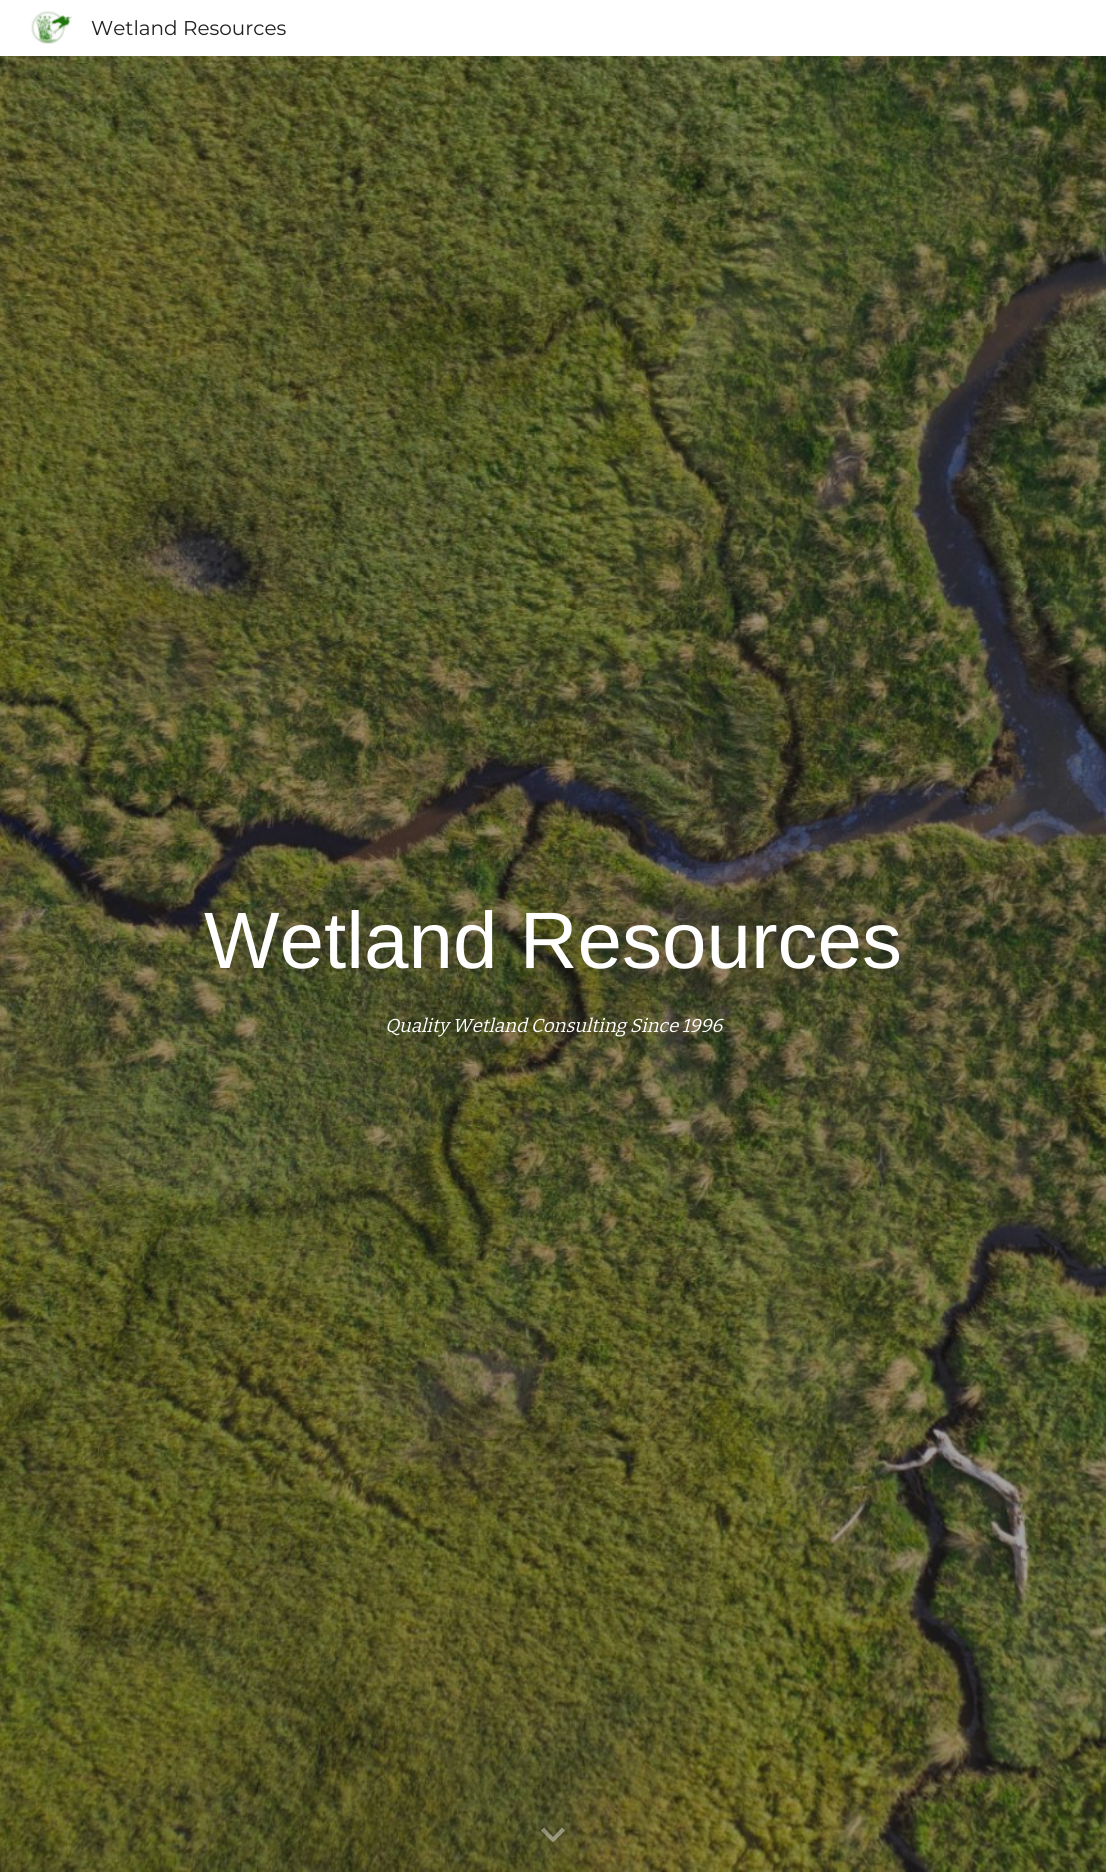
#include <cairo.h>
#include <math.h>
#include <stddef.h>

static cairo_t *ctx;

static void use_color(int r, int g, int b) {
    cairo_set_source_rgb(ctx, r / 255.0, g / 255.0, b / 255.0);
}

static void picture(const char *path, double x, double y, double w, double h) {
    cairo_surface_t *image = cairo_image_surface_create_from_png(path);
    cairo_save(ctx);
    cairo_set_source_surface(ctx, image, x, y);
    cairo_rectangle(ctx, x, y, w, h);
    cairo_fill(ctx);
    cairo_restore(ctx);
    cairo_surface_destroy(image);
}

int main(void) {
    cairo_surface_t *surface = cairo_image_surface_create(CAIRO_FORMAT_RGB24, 1106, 1872);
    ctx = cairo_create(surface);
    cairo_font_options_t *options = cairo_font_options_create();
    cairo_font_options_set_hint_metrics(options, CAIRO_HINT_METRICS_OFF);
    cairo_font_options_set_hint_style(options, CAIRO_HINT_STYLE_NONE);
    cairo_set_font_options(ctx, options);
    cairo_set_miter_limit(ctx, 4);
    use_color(255, 255, 255);
    cairo_paint(ctx);
    picture("img1.png", 31, 11, 42, 33);
    cairo_select_font_face(ctx, "Montserrat", CAIRO_FONT_SLANT_NORMAL, CAIRO_FONT_WEIGHT_NORMAL);
    cairo_set_font_size(ctx, 20);
    use_color(33, 33, 33);
    cairo_move_to(ctx, 91, 35);
    cairo_show_text(ctx, "Wetland Resources");
    picture("img2.png", 0, 56, 1106, 1816);
    cairo_select_font_face(ctx, "Liberation Sans", CAIRO_FONT_SLANT_NORMAL, CAIRO_FONT_WEIGHT_NORMAL);
    cairo_set_font_size(ctx, 80);
    use_color(255, 255, 255);
    cairo_move_to(ctx, 204, 968);
    cairo_show_text(ctx, "Wetland Resources");
    cairo_select_font_face(ctx, "Bitter", CAIRO_FONT_SLANT_ITALIC, CAIRO_FONT_WEIGHT_NORMAL);
    cairo_set_font_size(ctx, 18.7);
    cairo_move_to(ctx, 385, 1032);
    cairo_show_text(ctx, "Quality Wetland Consulting Since 1996");
    cairo_set_source_rgba(ctx, 1, 1, 1, 0.4);
    cairo_new_path(ctx);
    cairo_move_to(ctx, 544, 1827.5);
    cairo_line_to(ctx, 553, 1837);
    cairo_line_to(ctx, 562, 1827.5);
    cairo_line_to(ctx, 565, 1830.5);
    cairo_line_to(ctx, 553, 1842.5);
    cairo_line_to(ctx, 541, 1830.5);
    cairo_close_path(ctx);
    cairo_fill(ctx);
    cairo_surface_write_to_png(surface, "result.png");
    cairo_font_options_destroy(options);
    cairo_destroy(ctx);
    cairo_surface_destroy(surface);
    return 0;
}
